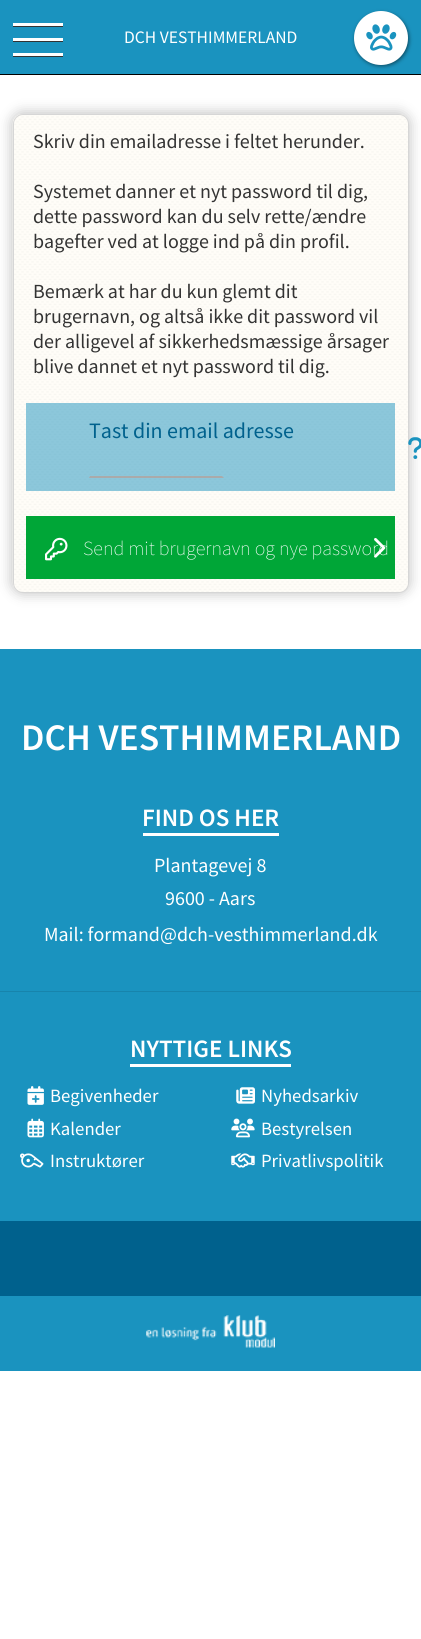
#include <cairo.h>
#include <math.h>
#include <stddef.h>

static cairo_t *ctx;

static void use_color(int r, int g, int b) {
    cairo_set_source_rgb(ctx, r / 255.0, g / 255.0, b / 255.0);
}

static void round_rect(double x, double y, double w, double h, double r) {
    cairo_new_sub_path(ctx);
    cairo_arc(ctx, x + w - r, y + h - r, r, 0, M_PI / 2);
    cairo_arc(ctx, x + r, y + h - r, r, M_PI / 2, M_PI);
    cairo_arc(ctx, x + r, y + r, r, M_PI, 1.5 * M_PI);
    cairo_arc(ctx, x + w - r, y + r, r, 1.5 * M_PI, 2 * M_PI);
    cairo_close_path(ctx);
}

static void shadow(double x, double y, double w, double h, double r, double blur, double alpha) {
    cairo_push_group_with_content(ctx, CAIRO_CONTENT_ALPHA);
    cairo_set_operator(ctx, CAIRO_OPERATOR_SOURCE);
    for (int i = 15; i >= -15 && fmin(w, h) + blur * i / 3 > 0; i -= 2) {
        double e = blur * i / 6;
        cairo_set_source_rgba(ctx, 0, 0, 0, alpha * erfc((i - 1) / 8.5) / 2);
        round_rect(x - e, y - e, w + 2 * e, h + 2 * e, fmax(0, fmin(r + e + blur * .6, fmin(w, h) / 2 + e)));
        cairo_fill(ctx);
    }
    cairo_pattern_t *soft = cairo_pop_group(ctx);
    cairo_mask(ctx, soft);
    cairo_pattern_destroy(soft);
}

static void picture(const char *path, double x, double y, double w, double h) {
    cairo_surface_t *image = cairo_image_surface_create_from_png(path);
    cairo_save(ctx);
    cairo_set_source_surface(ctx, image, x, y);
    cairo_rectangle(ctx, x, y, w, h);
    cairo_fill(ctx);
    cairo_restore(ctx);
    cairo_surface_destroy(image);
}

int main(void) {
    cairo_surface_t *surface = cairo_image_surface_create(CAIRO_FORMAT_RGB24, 421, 1639);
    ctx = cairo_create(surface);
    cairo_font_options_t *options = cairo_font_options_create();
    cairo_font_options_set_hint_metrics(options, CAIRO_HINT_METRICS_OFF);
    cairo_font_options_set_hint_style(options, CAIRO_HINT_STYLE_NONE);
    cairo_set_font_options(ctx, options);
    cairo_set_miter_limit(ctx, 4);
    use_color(255, 255, 255);
    cairo_paint(ctx);
    use_color(26, 147, 191);
    cairo_rectangle(ctx, 0, 0, 421, 74);
    cairo_fill(ctx);
    use_color(0, 0, 0);
    cairo_rectangle(ctx, 0, 74, 421, 1);
    cairo_fill(ctx);
    use_color(51, 51, 51);
    cairo_new_path(ctx);
    cairo_move_to(ctx, 13, 25);
    cairo_line_to(ctx, 13, 27);
    cairo_line_to(ctx, 63, 27);
    cairo_line_to(ctx, 63, 24);
    cairo_line_to(ctx, 62, 24);
    cairo_line_to(ctx, 62, 25);
    cairo_close_path(ctx);
    cairo_fill(ctx);
    use_color(255, 255, 255);
    cairo_rectangle(ctx, 13, 23, 50, 3);
    cairo_fill(ctx);
    use_color(51, 51, 51);
    cairo_new_path(ctx);
    cairo_move_to(ctx, 13, 40);
    cairo_line_to(ctx, 13, 42);
    cairo_line_to(ctx, 63, 42);
    cairo_line_to(ctx, 63, 39);
    cairo_line_to(ctx, 62, 39);
    cairo_line_to(ctx, 62, 40);
    cairo_close_path(ctx);
    cairo_fill(ctx);
    use_color(255, 255, 255);
    cairo_rectangle(ctx, 13, 38, 50, 3);
    cairo_fill(ctx);
    use_color(51, 51, 51);
    cairo_new_path(ctx);
    cairo_move_to(ctx, 13, 55);
    cairo_line_to(ctx, 13, 57);
    cairo_line_to(ctx, 63, 57);
    cairo_line_to(ctx, 63, 54);
    cairo_line_to(ctx, 62, 54);
    cairo_line_to(ctx, 62, 55);
    cairo_close_path(ctx);
    cairo_fill(ctx);
    use_color(255, 255, 255);
    cairo_rectangle(ctx, 13, 53, 50, 3);
    cairo_fill(ctx);
    cairo_select_font_face(ctx, "Source Sans Pro", CAIRO_FONT_SLANT_NORMAL, CAIRO_FONT_WEIGHT_NORMAL);
    cairo_set_font_size(ctx, 17.5);
    cairo_move_to(ctx, 124, 43);
    cairo_show_text(ctx, "DCH VESTHIMMERLAND");
    use_color(0, 0, 0);
    shadow(355, 13, 54, 53, 26.5, 2, 0.5);
    use_color(255, 255, 255);
    cairo_arc(ctx, 381, 38, 27, 0, 2 * M_PI);
    cairo_fill(ctx);
    picture("img1.png", 366, 24, 31, 27);
    use_color(0, 0, 0);
    shadow(10, 111, 401, 484, 13, 6, 0.2);
    picture("img2.png", 12, 114, 397, 478);
    round_rect(13.5, 114.5, 395, 478, 9.5);
    use_color(214, 214, 214);
    cairo_set_line_width(ctx, 1);
    cairo_stroke(ctx);
    cairo_set_font_size(ctx, 20);
    use_color(51, 51, 51);
    cairo_move_to(ctx, 33, 148);
    cairo_show_text(ctx, "Skriv din emailadresse i feltet herunder.");
    cairo_move_to(ctx, 33, 198);
    cairo_show_text(ctx, "Systemet danner et nyt password til dig,");
    cairo_move_to(ctx, 33, 223);
    cairo_show_text(ctx, "dette password kan du selv rette/ændre");
    cairo_move_to(ctx, 33, 248);
    cairo_show_text(ctx, "bagefter ved at logge ind på din profil.");
    cairo_move_to(ctx, 33, 298);
    cairo_show_text(ctx, "Bemærk at har du kun glemt dit");
    cairo_move_to(ctx, 33, 323);
    cairo_show_text(ctx, "brugernavn, og altså ikke dit password vil");
    cairo_move_to(ctx, 33, 348);
    cairo_show_text(ctx, "der alligevel af sikkerhedsmæssige årsager");
    cairo_move_to(ctx, 33, 373);
    cairo_show_text(ctx, "blive dannet et nyt password til dig.");
    cairo_set_source_rgba(ctx, 0.102, 0.576, 0.749, 0.5);
    cairo_rectangle(ctx, 26, 403, 369, 88);
    cairo_fill(ctx);
    cairo_set_font_size(ctx, 22);
    use_color(0, 97, 141);
    cairo_move_to(ctx, 89, 438);
    cairo_show_text(ctx, "Tast din email adresse");
    picture("img3.png", 408, 437, 13, 22);
    use_color(170, 170, 170);
    cairo_new_path(ctx);
    cairo_move_to(ctx, 224, 478);
    cairo_line_to(ctx, 89, 478);
    cairo_line_to(ctx, 90, 476);
    cairo_line_to(ctx, 222, 476);
    cairo_close_path(ctx);
    cairo_fill(ctx);
    use_color(0, 166, 55);
    cairo_rectangle(ctx, 26, 516, 369, 63);
    cairo_fill(ctx);
    picture("img4.png", 45, 537, 23, 24);
    cairo_select_font_face(ctx, "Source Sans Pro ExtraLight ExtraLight", CAIRO_FONT_SLANT_NORMAL, CAIRO_FONT_WEIGHT_NORMAL);
    cairo_set_font_size(ctx, 20);
    use_color(255, 255, 255);
    cairo_move_to(ctx, 83, 555);
    cairo_show_text(ctx, "Send mit brugernavn og nye password");
    picture("img5.png", 374, 538, 12, 20);
    use_color(26, 147, 191);
    cairo_rectangle(ctx, 0, 649, 421, 722);
    cairo_fill(ctx);
    cairo_select_font_face(ctx, "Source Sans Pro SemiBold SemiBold", CAIRO_FONT_SLANT_NORMAL, CAIRO_FONT_WEIGHT_NORMAL);
    cairo_set_font_size(ctx, 37.5);
    use_color(255, 255, 255);
    cairo_move_to(ctx, 21, 750);
    cairo_show_text(ctx, "DCH VESTHIMMERLAND");
    cairo_set_font_size(ctx, 25);
    cairo_move_to(ctx, 142, 826);
    cairo_show_text(ctx, "FIND OS HER");
    cairo_rectangle(ctx, 143, 833, 136, 3);
    cairo_fill(ctx);
    use_color(23, 132, 172);
    cairo_rectangle(ctx, 0, 991, 421, 1);
    cairo_fill(ctx);
    cairo_select_font_face(ctx, "Source Sans Pro", CAIRO_FONT_SLANT_NORMAL, CAIRO_FONT_WEIGHT_NORMAL);
    cairo_set_font_size(ctx, 20);
    use_color(255, 255, 255);
    cairo_move_to(ctx, 154, 872);
    cairo_show_text(ctx, "Plantagevej 8");
    cairo_move_to(ctx, 165, 905);
    cairo_show_text(ctx, "9600 - Aars");
    cairo_move_to(ctx, 44, 941);
    cairo_show_text(ctx, "Mail: formand@dch-vesthimmerland.dk");
    cairo_select_font_face(ctx, "Source Sans Pro SemiBold SemiBold", CAIRO_FONT_SLANT_NORMAL, CAIRO_FONT_WEIGHT_NORMAL);
    cairo_set_font_size(ctx, 25);
    cairo_move_to(ctx, 130, 1057);
    cairo_show_text(ctx, "NYTTIGE LINKS");
    cairo_rectangle(ctx, 130, 1064, 161, 3);
    cairo_fill(ctx);
    picture("img6.png", 27, 1086, 17, 19);
    cairo_select_font_face(ctx, "Source Sans Pro", CAIRO_FONT_SLANT_NORMAL, CAIRO_FONT_WEIGHT_NORMAL);
    cairo_set_font_size(ctx, 18.75);
    cairo_move_to(ctx, 50, 1102);
    cairo_show_text(ctx, "Begivenheder");
    picture("img7.png", 236, 1087, 19, 17);
    cairo_move_to(ctx, 261, 1102);
    cairo_show_text(ctx, "Nyhedsarkiv");
    picture("img8.png", 27, 1118, 17, 20);
    cairo_move_to(ctx, 50, 1135);
    cairo_show_text(ctx, "Kalender");
    picture("img9.png", 231, 1118, 24, 20);
    cairo_move_to(ctx, 261, 1135);
    cairo_show_text(ctx, "Bestyrelsen");
    picture("img10.png", 20, 1153, 24, 15);
    cairo_move_to(ctx, 50, 1167);
    cairo_show_text(ctx, "Instruktører");
    picture("img11.png", 231, 1153, 24, 15);
    cairo_move_to(ctx, 261, 1167);
    cairo_show_text(ctx, "Privatlivspolitik");
    use_color(0, 97, 141);
    cairo_rectangle(ctx, 0, 1221, 421, 75);
    cairo_fill(ctx);
    picture("img12.png", 146, 1315, 129, 33);
    cairo_surface_write_to_png(surface, "result.png");
    cairo_font_options_destroy(options);
    cairo_destroy(ctx);
    cairo_surface_destroy(surface);
    return 0;
}
